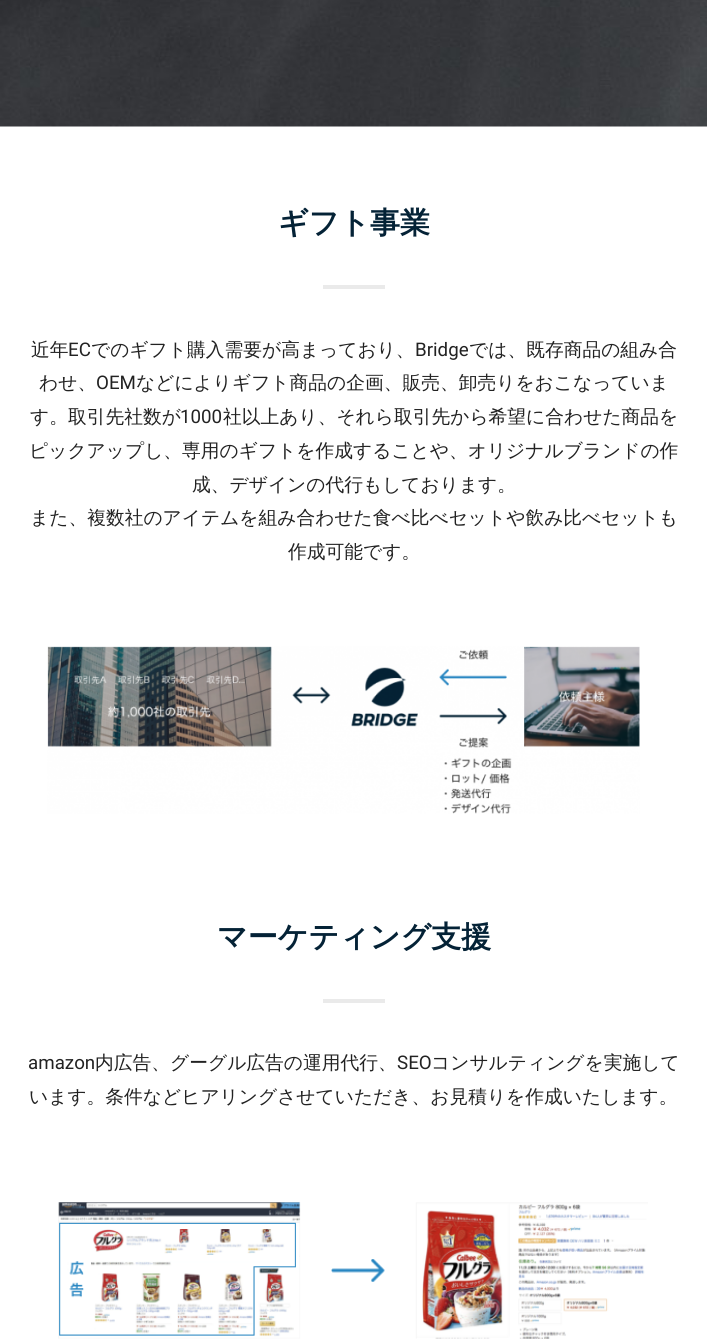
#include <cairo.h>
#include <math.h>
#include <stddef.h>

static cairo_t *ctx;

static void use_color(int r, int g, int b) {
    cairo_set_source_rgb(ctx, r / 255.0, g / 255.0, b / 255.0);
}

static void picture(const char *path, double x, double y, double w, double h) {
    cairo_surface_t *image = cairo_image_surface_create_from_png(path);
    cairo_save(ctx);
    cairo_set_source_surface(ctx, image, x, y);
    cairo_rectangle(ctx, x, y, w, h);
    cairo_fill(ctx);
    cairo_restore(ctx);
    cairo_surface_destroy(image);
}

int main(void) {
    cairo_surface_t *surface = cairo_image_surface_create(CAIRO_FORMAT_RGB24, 707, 1342);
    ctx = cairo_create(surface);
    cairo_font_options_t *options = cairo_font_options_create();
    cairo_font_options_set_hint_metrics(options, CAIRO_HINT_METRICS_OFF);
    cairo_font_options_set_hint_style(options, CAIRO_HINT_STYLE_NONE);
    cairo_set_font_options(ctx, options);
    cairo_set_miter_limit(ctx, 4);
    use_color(255, 255, 255);
    cairo_paint(ctx);
    picture("img1.png", 0, 0, 707, 127);
    cairo_select_font_face(ctx, "WenQuanYi Zen Hei", CAIRO_FONT_SLANT_NORMAL, CAIRO_FONT_WEIGHT_BOLD);
    cairo_set_font_size(ctx, 30);
    use_color(4, 34, 54);
    cairo_move_to(ctx, 278, 233);
    cairo_show_text(ctx, "ギフト事業");
    use_color(234, 234, 234);
    cairo_rectangle(ctx, 323, 285, 62, 4);
    cairo_fill(ctx);
    cairo_select_font_face(ctx, "WenQuanYi Zen Hei Medium", CAIRO_FONT_SLANT_NORMAL, CAIRO_FONT_WEIGHT_NORMAL);
    cairo_set_font_size(ctx, 18.75);
    use_color(34, 34, 34);
    cairo_move_to(ctx, 31, 356);
    cairo_show_text(ctx, "近年");
    cairo_select_font_face(ctx, "Roboto", CAIRO_FONT_SLANT_NORMAL, CAIRO_FONT_WEIGHT_NORMAL);
    cairo_move_to(ctx, 68, 356);
    cairo_show_text(ctx, "EC");
    cairo_select_font_face(ctx, "WenQuanYi Zen Hei Medium", CAIRO_FONT_SLANT_NORMAL, CAIRO_FONT_WEIGHT_NORMAL);
    cairo_move_to(ctx, 91, 356);
    cairo_show_text(ctx, "でのギフト購入需要が高まっており、");
    cairo_select_font_face(ctx, "Roboto", CAIRO_FONT_SLANT_NORMAL, CAIRO_FONT_WEIGHT_NORMAL);
    cairo_move_to(ctx, 415, 356);
    cairo_show_text(ctx, "Bridge");
    cairo_select_font_face(ctx, "WenQuanYi Zen Hei Medium", CAIRO_FONT_SLANT_NORMAL, CAIRO_FONT_WEIGHT_NORMAL);
    cairo_move_to(ctx, 469, 356);
    cairo_show_text(ctx, "では、既存商品の組み合");
    cairo_move_to(ctx, 39, 389);
    cairo_show_text(ctx, "わせ、");
    cairo_select_font_face(ctx, "Roboto", CAIRO_FONT_SLANT_NORMAL, CAIRO_FONT_WEIGHT_NORMAL);
    cairo_move_to(ctx, 96, 389);
    cairo_show_text(ctx, "OEM");
    cairo_select_font_face(ctx, "WenQuanYi Zen Hei Medium", CAIRO_FONT_SLANT_NORMAL, CAIRO_FONT_WEIGHT_NORMAL);
    cairo_move_to(ctx, 136, 389);
    cairo_show_text(ctx, "などによりギフト商品の企画、販売、卸売りをおこなっていま");
    cairo_move_to(ctx, 30, 423);
    cairo_show_text(ctx, "す。取引先社数が");
    cairo_select_font_face(ctx, "Roboto", CAIRO_FONT_SLANT_NORMAL, CAIRO_FONT_WEIGHT_NORMAL);
    cairo_move_to(ctx, 180, 423);
    cairo_show_text(ctx, "1000");
    cairo_select_font_face(ctx, "WenQuanYi Zen Hei Medium", CAIRO_FONT_SLANT_NORMAL, CAIRO_FONT_WEIGHT_NORMAL);
    cairo_move_to(ctx, 223, 423);
    cairo_show_text(ctx, "社以上あり、それら取引先から希望に合わせた商品を");
    cairo_move_to(ctx, 29, 457);
    cairo_show_text(ctx, "ピックアップし、専用のギフトを作成することや、オリジナルブランドの作");
    cairo_move_to(ctx, 192, 491);
    cairo_show_text(ctx, "成、デザインの代行もしております。");
    cairo_move_to(ctx, 30, 524);
    cairo_show_text(ctx, "また、複数社のアイテムを組み合わせた食べ比べセットや飲み比べセットも");
    cairo_move_to(ctx, 288, 558);
    cairo_show_text(ctx, "作成可能です。");
    picture("img2.png", 47, 646, 593, 168);
    cairo_select_font_face(ctx, "WenQuanYi Zen Hei", CAIRO_FONT_SLANT_NORMAL, CAIRO_FONT_WEIGHT_BOLD);
    cairo_set_font_size(ctx, 30);
    use_color(4, 34, 54);
    cairo_move_to(ctx, 217, 947);
    cairo_show_text(ctx, "マーケティング支援");
    use_color(234, 234, 234);
    cairo_rectangle(ctx, 323, 999, 62, 4);
    cairo_fill(ctx);
    cairo_select_font_face(ctx, "Roboto", CAIRO_FONT_SLANT_NORMAL, CAIRO_FONT_WEIGHT_NORMAL);
    cairo_set_font_size(ctx, 18.75);
    use_color(34, 34, 34);
    cairo_move_to(ctx, 28, 1069);
    cairo_show_text(ctx, "amazon");
    cairo_select_font_face(ctx, "WenQuanYi Zen Hei Medium", CAIRO_FONT_SLANT_NORMAL, CAIRO_FONT_WEIGHT_NORMAL);
    cairo_move_to(ctx, 95, 1069);
    cairo_show_text(ctx, "内広告、グーグル広告の運用代行、");
    cairo_select_font_face(ctx, "Roboto", CAIRO_FONT_SLANT_NORMAL, CAIRO_FONT_WEIGHT_NORMAL);
    cairo_move_to(ctx, 397, 1069);
    cairo_show_text(ctx, "SEO");
    cairo_select_font_face(ctx, "WenQuanYi Zen Hei Medium", CAIRO_FONT_SLANT_NORMAL, CAIRO_FONT_WEIGHT_NORMAL);
    cairo_move_to(ctx, 431, 1069);
    cairo_show_text(ctx, "コンサルティングを実施して");
    cairo_move_to(ctx, 29, 1103);
    cairo_show_text(ctx, "います。条件などヒアリングさせていただき、お見積りを作成いたします。");
    picture("img3.png", 58, 1202, 590, 137);
    cairo_surface_write_to_png(surface, "result.png");
    cairo_font_options_destroy(options);
    cairo_destroy(ctx);
    cairo_surface_destroy(surface);
    return 0;
}
